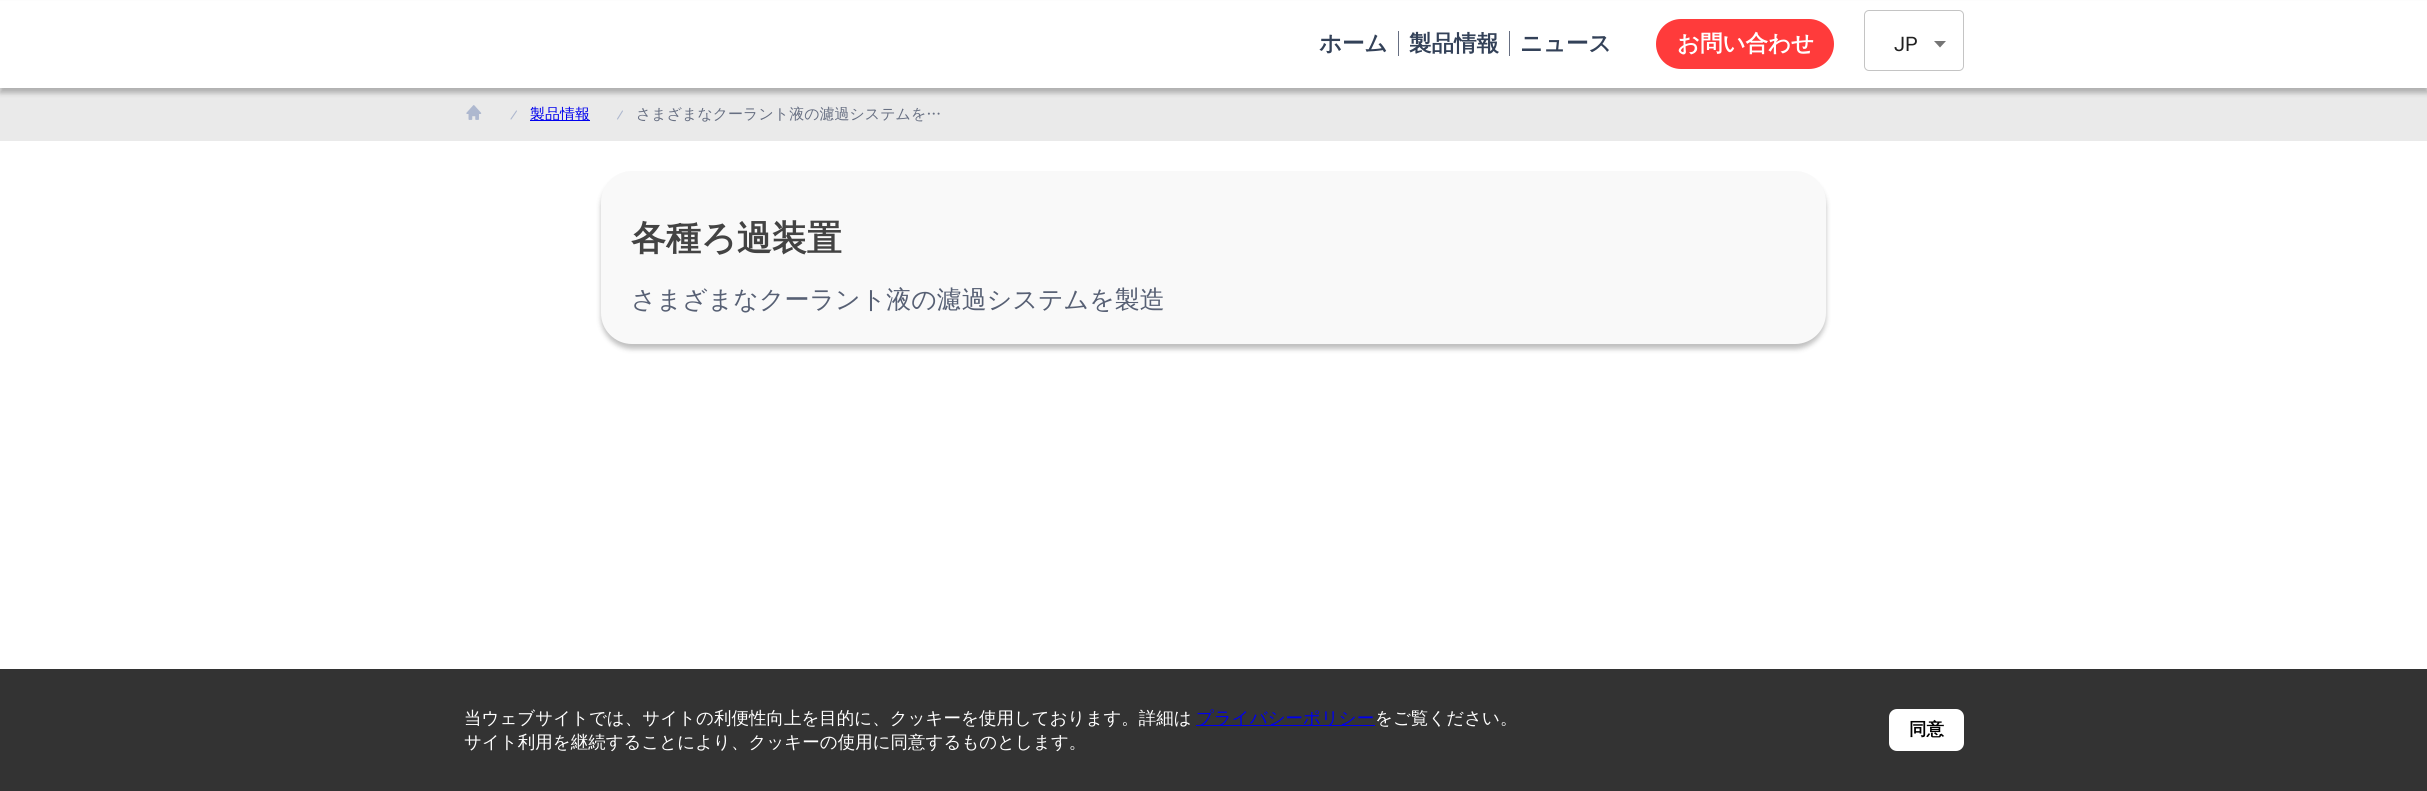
#include <cairo.h>
#include <math.h>
#include <stddef.h>

static cairo_t *ctx;

static void use_color(int r, int g, int b) {
    cairo_set_source_rgb(ctx, r / 255.0, g / 255.0, b / 255.0);
}

static void round_rect(double x, double y, double w, double h, double r) {
    cairo_new_sub_path(ctx);
    cairo_arc(ctx, x + w - r, y + h - r, r, 0, M_PI / 2);
    cairo_arc(ctx, x + r, y + h - r, r, M_PI / 2, M_PI);
    cairo_arc(ctx, x + r, y + r, r, M_PI, 1.5 * M_PI);
    cairo_arc(ctx, x + w - r, y + r, r, 1.5 * M_PI, 2 * M_PI);
    cairo_close_path(ctx);
}

static void shadow(double x, double y, double w, double h, double r, double blur, double alpha) {
    cairo_push_group_with_content(ctx, CAIRO_CONTENT_ALPHA);
    cairo_set_operator(ctx, CAIRO_OPERATOR_SOURCE);
    for (int i = 15; i >= -15 && fmin(w, h) + blur * i / 3 > 0; i -= 2) {
        double e = blur * i / 6;
        cairo_set_source_rgba(ctx, 0, 0, 0, alpha * erfc((i - 1) / 8.5) / 2);
        round_rect(x - e, y - e, w + 2 * e, h + 2 * e, fmax(0, fmin(r + e + blur * .6, fmin(w, h) / 2 + e)));
        cairo_fill(ctx);
    }
    cairo_pattern_t *soft = cairo_pop_group(ctx);
    cairo_mask(ctx, soft);
    cairo_pattern_destroy(soft);
}

static void picture(const char *path, double x, double y, double w, double h) {
    cairo_surface_t *image = cairo_image_surface_create_from_png(path);
    cairo_save(ctx);
    cairo_set_source_surface(ctx, image, x, y);
    cairo_rectangle(ctx, x, y, w, h);
    cairo_fill(ctx);
    cairo_restore(ctx);
    cairo_surface_destroy(image);
}

int main(void) {
    cairo_surface_t *surface = cairo_image_surface_create(CAIRO_FORMAT_RGB24, 2427, 791);
    ctx = cairo_create(surface);
    cairo_font_options_t *options = cairo_font_options_create();
    cairo_font_options_set_hint_metrics(options, CAIRO_HINT_METRICS_OFF);
    cairo_font_options_set_hint_style(options, CAIRO_HINT_STYLE_NONE);
    cairo_set_font_options(ctx, options);
    cairo_set_miter_limit(ctx, 4);
    use_color(255, 255, 255);
    cairo_paint(ctx);
    use_color(234, 234, 234);
    cairo_rectangle(ctx, 0, 88, 2427, 53);
    cairo_fill(ctx);
    use_color(0, 0, 0);
    shadow(0, 5, 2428, 88, 0, 2.5, 0.25);
    use_color(255, 255, 255);
    cairo_rectangle(ctx, 0, 1, 2427, 87);
    cairo_fill(ctx);
    cairo_select_font_face(ctx, "WenQuanYi Zen Hei", CAIRO_FONT_SLANT_NORMAL, CAIRO_FONT_WEIGHT_BOLD);
    cairo_set_font_size(ctx, 22.5);
    use_color(51, 65, 88);
    cairo_move_to(ctx, 1319, 51);
    cairo_show_text(ctx, "ホーム");
    use_color(103, 111, 130);
    cairo_rectangle(ctx, 1398, 31, 1, 25);
    cairo_fill(ctx);
    use_color(51, 65, 88);
    cairo_move_to(ctx, 1409, 51);
    cairo_show_text(ctx, "製品情報");
    use_color(103, 111, 130);
    cairo_rectangle(ctx, 1509, 31, 1, 25);
    cairo_fill(ctx);
    use_color(51, 65, 88);
    cairo_move_to(ctx, 1520, 51);
    cairo_show_text(ctx, "ニュース");
    use_color(255, 59, 59);
    round_rect(1656, 19, 178, 50, 25);
    cairo_fill(ctx);
    use_color(255, 255, 255);
    cairo_move_to(ctx, 1677, 51);
    cairo_show_text(ctx, "お問い合わせ");
    use_color(117, 117, 117);
    cairo_new_path(ctx);
    cairo_move_to(ctx, 1934, 41);
    cairo_line_to(ctx, 1940, 47.5);
    cairo_line_to(ctx, 1946, 41);
    cairo_close_path(ctx);
    cairo_fill(ctx);
    round_rect(1864.5, 10.5, 99, 60, 4.5);
    use_color(196, 196, 196);
    cairo_set_line_width(ctx, 1);
    cairo_stroke(ctx);
    cairo_select_font_face(ctx, "Roboto", CAIRO_FONT_SLANT_NORMAL, CAIRO_FONT_WEIGHT_NORMAL);
    cairo_set_font_size(ctx, 20);
    use_color(33, 33, 33);
    cairo_move_to(ctx, 1894, 51);
    cairo_show_text(ctx, "JP");
    picture("img1.png", 466, 105, 16, 15);
    cairo_new_path(ctx);
    cairo_move_to(ctx, 516.5, 111);
    cairo_line_to(ctx, 511, 119);
    use_color(174, 184, 207);
    cairo_set_line_width(ctx, 1.1);
    cairo_set_line_cap(ctx, CAIRO_LINE_CAP_ROUND);
    cairo_stroke(ctx);
    use_color(0, 0, 238);
    cairo_rectangle(ctx, 530, 120, 60, 1);
    cairo_fill(ctx);
    cairo_select_font_face(ctx, "WenQuanYi Zen Hei Medium", CAIRO_FONT_SLANT_NORMAL, CAIRO_FONT_WEIGHT_NORMAL);
    cairo_set_font_size(ctx, 15);
    cairo_move_to(ctx, 530, 119);
    cairo_show_text(ctx, "製品情報");
    cairo_new_path(ctx);
    cairo_move_to(ctx, 622.5, 111);
    cairo_line_to(ctx, 617.5, 119);
    use_color(174, 184, 207);
    cairo_stroke(ctx);
    use_color(103, 111, 130);
    cairo_move_to(ctx, 636, 119);
    cairo_show_text(ctx, "さまざまなクーラント液の濾過システムを…");
    use_color(0, 0, 0);
    shadow(601, 176, 1225, 173, 31, 2.5, 0.25);
    use_color(249, 249, 249);
    round_rect(601, 171, 1225, 173, 31);
    cairo_fill(ctx);
    cairo_select_font_face(ctx, "WenQuanYi Zen Hei", CAIRO_FONT_SLANT_NORMAL, CAIRO_FONT_WEIGHT_BOLD);
    cairo_set_font_size(ctx, 35);
    use_color(67, 67, 67);
    cairo_move_to(ctx, 631, 250);
    cairo_show_text(ctx, "各種ろ過装置");
    cairo_select_font_face(ctx, "WenQuanYi Zen Hei Medium", CAIRO_FONT_SLANT_NORMAL, CAIRO_FONT_WEIGHT_NORMAL);
    cairo_set_font_size(ctx, 25);
    use_color(87, 96, 116);
    cairo_move_to(ctx, 631, 308);
    cairo_show_text(ctx, "さまざまなクーラント液の濾過システムを製造");
    use_color(51, 51, 51);
    cairo_rectangle(ctx, 0, 669, 2427, 122);
    cairo_fill(ctx);
    cairo_set_font_size(ctx, 17.5);
    use_color(255, 255, 255);
    cairo_move_to(ctx, 464, 724);
    cairo_show_text(ctx, "当ウェブサイトでは、サイトの利便性向上を目的に、クッキーを使用しております。詳細は");
    use_color(0, 0, 238);
    cairo_rectangle(ctx, 1196, 725, 179, 1);
    cairo_fill(ctx);
    cairo_move_to(ctx, 1196, 724);
    cairo_show_text(ctx, "プライバシーポリシー");
    use_color(255, 255, 255);
    cairo_move_to(ctx, 1375, 724);
    cairo_show_text(ctx, "をご覧ください。");
    cairo_move_to(ctx, 464, 748);
    cairo_show_text(ctx, "サイト利用を継続することにより、クッキーの使用に同意するものとします。");
    round_rect(1889, 709, 75, 42, 8);
    cairo_fill(ctx);
    cairo_select_font_face(ctx, "WenQuanYi Zen Hei", CAIRO_FONT_SLANT_NORMAL, CAIRO_FONT_WEIGHT_BOLD);
    use_color(0, 0, 0);
    cairo_move_to(ctx, 1909, 735);
    cairo_show_text(ctx, "同意");
    cairo_surface_write_to_png(surface, "result.png");
    cairo_font_options_destroy(options);
    cairo_destroy(ctx);
    cairo_surface_destroy(surface);
    return 0;
}
